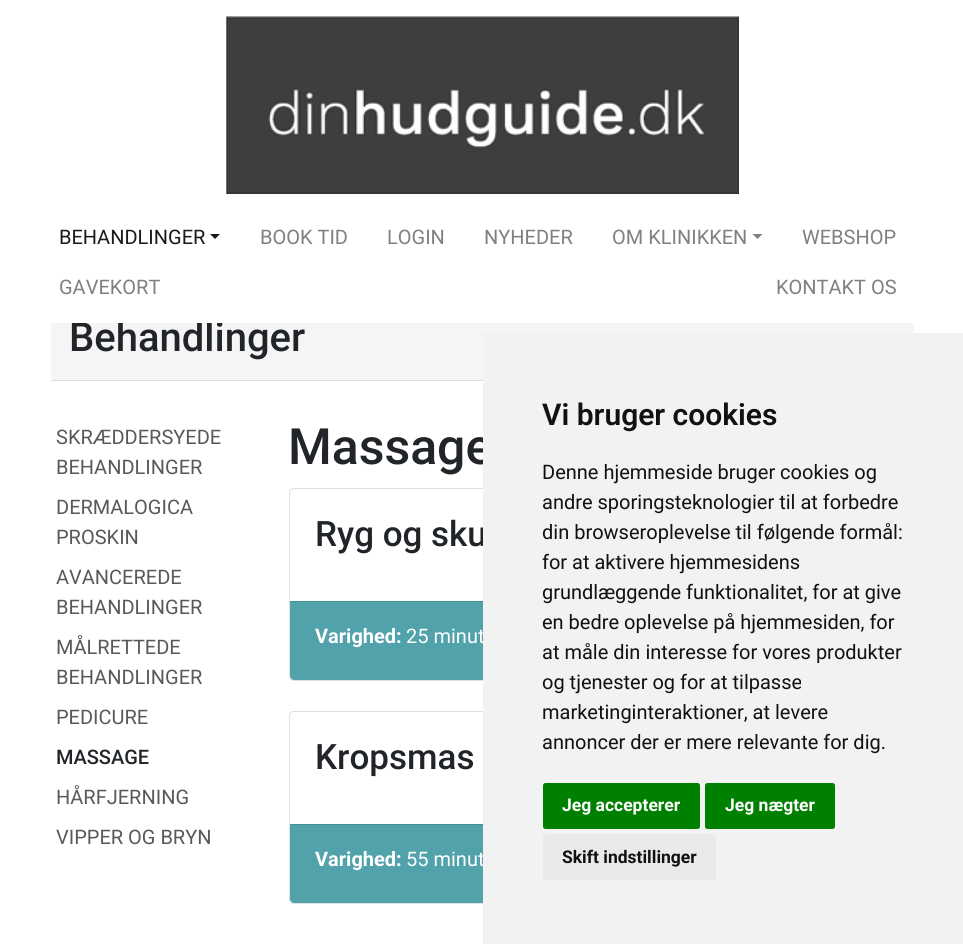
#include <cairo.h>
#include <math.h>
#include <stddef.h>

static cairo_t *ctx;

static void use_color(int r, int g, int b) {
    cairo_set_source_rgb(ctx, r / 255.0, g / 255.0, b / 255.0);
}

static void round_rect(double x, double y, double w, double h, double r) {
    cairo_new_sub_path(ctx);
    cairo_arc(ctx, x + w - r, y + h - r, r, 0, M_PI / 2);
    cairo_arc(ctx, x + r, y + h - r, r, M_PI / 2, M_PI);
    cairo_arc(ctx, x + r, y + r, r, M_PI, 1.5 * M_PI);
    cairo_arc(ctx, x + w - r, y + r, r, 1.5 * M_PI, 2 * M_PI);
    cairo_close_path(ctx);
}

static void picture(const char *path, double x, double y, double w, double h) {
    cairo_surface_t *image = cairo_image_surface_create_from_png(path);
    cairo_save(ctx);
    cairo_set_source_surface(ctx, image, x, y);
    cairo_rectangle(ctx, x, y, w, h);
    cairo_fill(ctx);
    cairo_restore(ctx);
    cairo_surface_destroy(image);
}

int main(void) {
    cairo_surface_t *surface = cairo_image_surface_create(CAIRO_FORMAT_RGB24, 963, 944);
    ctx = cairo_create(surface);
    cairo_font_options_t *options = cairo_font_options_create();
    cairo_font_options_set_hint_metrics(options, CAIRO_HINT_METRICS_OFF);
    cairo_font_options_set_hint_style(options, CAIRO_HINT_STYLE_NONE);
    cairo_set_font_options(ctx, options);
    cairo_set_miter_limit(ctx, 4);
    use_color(255, 255, 255);
    cairo_paint(ctx);
    picture("img1.png", 226, 16, 513, 178);
    use_color(245, 245, 245);
    cairo_rectangle(ctx, 51, 323, 863, 57);
    cairo_fill(ctx);
    cairo_select_font_face(ctx, "Roboto Medium", CAIRO_FONT_SLANT_NORMAL, CAIRO_FONT_WEIGHT_NORMAL);
    cairo_set_font_size(ctx, 40);
    use_color(33, 37, 41);
    cairo_move_to(ctx, 69, 351);
    cairo_show_text(ctx, "Behandlinger");
    use_color(255, 255, 255);
    cairo_rectangle(ctx, 72, 321, 151, 2);
    cairo_fill(ctx);
    cairo_select_font_face(ctx, "Roboto", CAIRO_FONT_SLANT_NORMAL, CAIRO_FONT_WEIGHT_NORMAL);
    cairo_set_font_size(ctx, 20);
    use_color(26, 26, 26);
    cairo_move_to(ctx, 59, 244);
    cairo_show_text(ctx, "BEHANDLINGER");
    cairo_new_path(ctx);
    cairo_move_to(ctx, 210, 234);
    cairo_line_to(ctx, 220, 234);
    cairo_line_to(ctx, 215, 239);
    cairo_close_path(ctx);
    cairo_fill(ctx);
    use_color(128, 128, 128);
    cairo_move_to(ctx, 260, 244);
    cairo_show_text(ctx, "BOOK TID");
    cairo_move_to(ctx, 387, 244);
    cairo_show_text(ctx, "LOGIN");
    cairo_move_to(ctx, 484, 244);
    cairo_show_text(ctx, "NYHEDER");
    cairo_move_to(ctx, 612, 244);
    cairo_show_text(ctx, "OM KLINIKKEN");
    cairo_new_path(ctx);
    cairo_move_to(ctx, 752.5, 234);
    cairo_line_to(ctx, 762.5, 234);
    cairo_line_to(ctx, 757.5, 239);
    cairo_close_path(ctx);
    cairo_fill(ctx);
    cairo_move_to(ctx, 802, 244);
    cairo_show_text(ctx, "WEBSHOP");
    cairo_move_to(ctx, 59, 294);
    cairo_show_text(ctx, "GAVEKORT");
    cairo_move_to(ctx, 776, 294);
    cairo_show_text(ctx, "KONTAKT OS");
    use_color(226, 218, 208);
    cairo_rectangle(ctx, 51, 380, 432, 1);
    cairo_fill(ctx);
    use_color(89, 89, 89);
    cairo_move_to(ctx, 56, 444);
    cairo_show_text(ctx, "SKRÆDDERSYEDE");
    cairo_move_to(ctx, 56, 474);
    cairo_show_text(ctx, "BEHANDLINGER");
    cairo_move_to(ctx, 56, 514);
    cairo_show_text(ctx, "DERMALOGICA");
    cairo_move_to(ctx, 56, 544);
    cairo_show_text(ctx, "PROSKIN");
    cairo_move_to(ctx, 56, 584);
    cairo_show_text(ctx, "AVANCEREDE");
    cairo_move_to(ctx, 56, 614);
    cairo_show_text(ctx, "BEHANDLINGER");
    cairo_move_to(ctx, 56, 654);
    cairo_show_text(ctx, "MÅLRETTEDE");
    cairo_move_to(ctx, 56, 684);
    cairo_show_text(ctx, "BEHANDLINGER");
    cairo_move_to(ctx, 56, 724);
    cairo_show_text(ctx, "PEDICURE");
    cairo_select_font_face(ctx, "Roboto Medium", CAIRO_FONT_SLANT_NORMAL, CAIRO_FONT_WEIGHT_NORMAL);
    use_color(33, 37, 41);
    cairo_move_to(ctx, 56, 764);
    cairo_show_text(ctx, "MASSAGE");
    cairo_select_font_face(ctx, "Roboto", CAIRO_FONT_SLANT_NORMAL, CAIRO_FONT_WEIGHT_NORMAL);
    use_color(89, 89, 89);
    cairo_move_to(ctx, 56, 804);
    cairo_show_text(ctx, "HÅRFJERNING");
    cairo_move_to(ctx, 56, 844);
    cairo_show_text(ctx, "VIPPER OG BRYN");
    cairo_select_font_face(ctx, "Roboto Medium", CAIRO_FONT_SLANT_NORMAL, CAIRO_FONT_WEIGHT_NORMAL);
    cairo_set_font_size(ctx, 50);
    use_color(33, 37, 41);
    cairo_move_to(ctx, 288, 464);
    cairo_show_text(ctx, "Massage");
    round_rect(289.5, 488.5, 624, 192, 4.5);
    use_color(223, 223, 223);
    cairo_set_line_width(ctx, 1);
    cairo_stroke(ctx);
    cairo_set_font_size(ctx, 35);
    use_color(33, 37, 41);
    cairo_move_to(ctx, 315, 546);
    cairo_show_text(ctx, "Ryg og sku");
    use_color(82, 162, 171);
    cairo_new_path(ctx);
    cairo_move_to(ctx, 290, 601);
    cairo_line_to(ctx, 913, 601);
    cairo_line_to(ctx, 913, 676);
    cairo_curve_to(ctx, 913, 678, 911, 680, 909, 680);
    cairo_line_to(ctx, 294, 680);
    cairo_curve_to(ctx, 292, 680, 290, 678, 290, 676);
    cairo_close_path(ctx);
    cairo_fill(ctx);
    use_color(72, 142, 150);
    cairo_rectangle(ctx, 290, 601, 193, 1);
    cairo_fill(ctx);
    cairo_select_font_face(ctx, "Roboto", CAIRO_FONT_SLANT_NORMAL, CAIRO_FONT_WEIGHT_BOLD);
    cairo_set_font_size(ctx, 20);
    use_color(255, 255, 255);
    cairo_move_to(ctx, 315, 643);
    cairo_show_text(ctx, "Varighed:");
    cairo_select_font_face(ctx, "Roboto", CAIRO_FONT_SLANT_NORMAL, CAIRO_FONT_WEIGHT_NORMAL);
    cairo_move_to(ctx, 406, 643);
    cairo_show_text(ctx, "25 minut");
    round_rect(289.5, 711.5, 624, 192, 4.5);
    use_color(223, 223, 223);
    cairo_stroke(ctx);
    cairo_select_font_face(ctx, "Roboto Medium", CAIRO_FONT_SLANT_NORMAL, CAIRO_FONT_WEIGHT_NORMAL);
    cairo_set_font_size(ctx, 35);
    use_color(33, 37, 41);
    cairo_move_to(ctx, 315, 769);
    cairo_show_text(ctx, "Kropsmas");
    use_color(82, 162, 171);
    cairo_new_path(ctx);
    cairo_move_to(ctx, 290, 824);
    cairo_line_to(ctx, 913, 824);
    cairo_line_to(ctx, 913, 899);
    cairo_curve_to(ctx, 913, 901, 911, 903, 909, 903);
    cairo_line_to(ctx, 294, 903);
    cairo_curve_to(ctx, 292, 903, 290, 901, 290, 899);
    cairo_close_path(ctx);
    cairo_fill(ctx);
    use_color(72, 142, 150);
    cairo_rectangle(ctx, 290, 824, 193, 1);
    cairo_fill(ctx);
    cairo_select_font_face(ctx, "Roboto", CAIRO_FONT_SLANT_NORMAL, CAIRO_FONT_WEIGHT_BOLD);
    cairo_set_font_size(ctx, 20);
    use_color(255, 255, 255);
    cairo_move_to(ctx, 315, 866);
    cairo_show_text(ctx, "Varighed:");
    cairo_select_font_face(ctx, "Roboto", CAIRO_FONT_SLANT_NORMAL, CAIRO_FONT_WEIGHT_NORMAL);
    cairo_move_to(ctx, 406, 866);
    cairo_show_text(ctx, "55 minut");
    use_color(242, 242, 242);
    cairo_rectangle(ctx, 483, 333, 480, 611);
    cairo_fill(ctx);
    cairo_select_font_face(ctx, "Roboto SemiBold", CAIRO_FONT_SLANT_NORMAL, CAIRO_FONT_WEIGHT_NORMAL);
    cairo_set_font_size(ctx, 30);
    use_color(17, 17, 17);
    cairo_move_to(ctx, 542, 425);
    cairo_show_text(ctx, "Vi bruger cookies");
    cairo_select_font_face(ctx, "Roboto", CAIRO_FONT_SLANT_NORMAL, CAIRO_FONT_WEIGHT_NORMAL);
    cairo_set_font_size(ctx, 20);
    cairo_move_to(ctx, 542, 479);
    cairo_show_text(ctx, "Denne hjemmeside bruger cookies og");
    cairo_move_to(ctx, 542, 509);
    cairo_show_text(ctx, "andre sporingsteknologier til at forbedre");
    cairo_move_to(ctx, 542, 539);
    cairo_show_text(ctx, "din browseroplevelse til følgende formål:");
    cairo_move_to(ctx, 542, 569);
    cairo_show_text(ctx, "for at aktivere hjemmesidens");
    cairo_move_to(ctx, 542, 599);
    cairo_show_text(ctx, "grundlæggende funktionalitet, for at give");
    cairo_move_to(ctx, 542, 629);
    cairo_show_text(ctx, "en bedre oplevelse på hjemmesiden, for");
    cairo_move_to(ctx, 542, 659);
    cairo_show_text(ctx, "at måle din interesse for vores produkter");
    cairo_move_to(ctx, 542, 689);
    cairo_show_text(ctx, "og tjenester og for at tilpasse");
    cairo_move_to(ctx, 542, 719);
    cairo_show_text(ctx, "marketinginteraktioner, at levere");
    cairo_move_to(ctx, 542, 749);
    cairo_show_text(ctx, "annoncer der er mere relevante for dig.");
    use_color(0, 128, 0);
    round_rect(543, 783, 157, 46, 2.5);
    cairo_fill(ctx);
    cairo_select_font_face(ctx, "Roboto", CAIRO_FONT_SLANT_NORMAL, CAIRO_FONT_WEIGHT_BOLD);
    cairo_set_font_size(ctx, 17.5);
    use_color(255, 255, 255);
    cairo_move_to(ctx, 562, 811);
    cairo_show_text(ctx, "Jeg accepterer");
    use_color(0, 128, 0);
    round_rect(705, 783, 130, 46, 2.5);
    cairo_fill(ctx);
    use_color(255, 255, 255);
    cairo_move_to(ctx, 725, 811);
    cairo_show_text(ctx, "Jeg nægter");
    use_color(234, 234, 234);
    round_rect(543, 834, 173, 46, 2.5);
    cairo_fill(ctx);
    use_color(17, 17, 17);
    cairo_move_to(ctx, 562, 863);
    cairo_show_text(ctx, "Skift indstillinger");
    cairo_surface_write_to_png(surface, "result.png");
    cairo_font_options_destroy(options);
    cairo_destroy(ctx);
    cairo_surface_destroy(surface);
    return 0;
}
